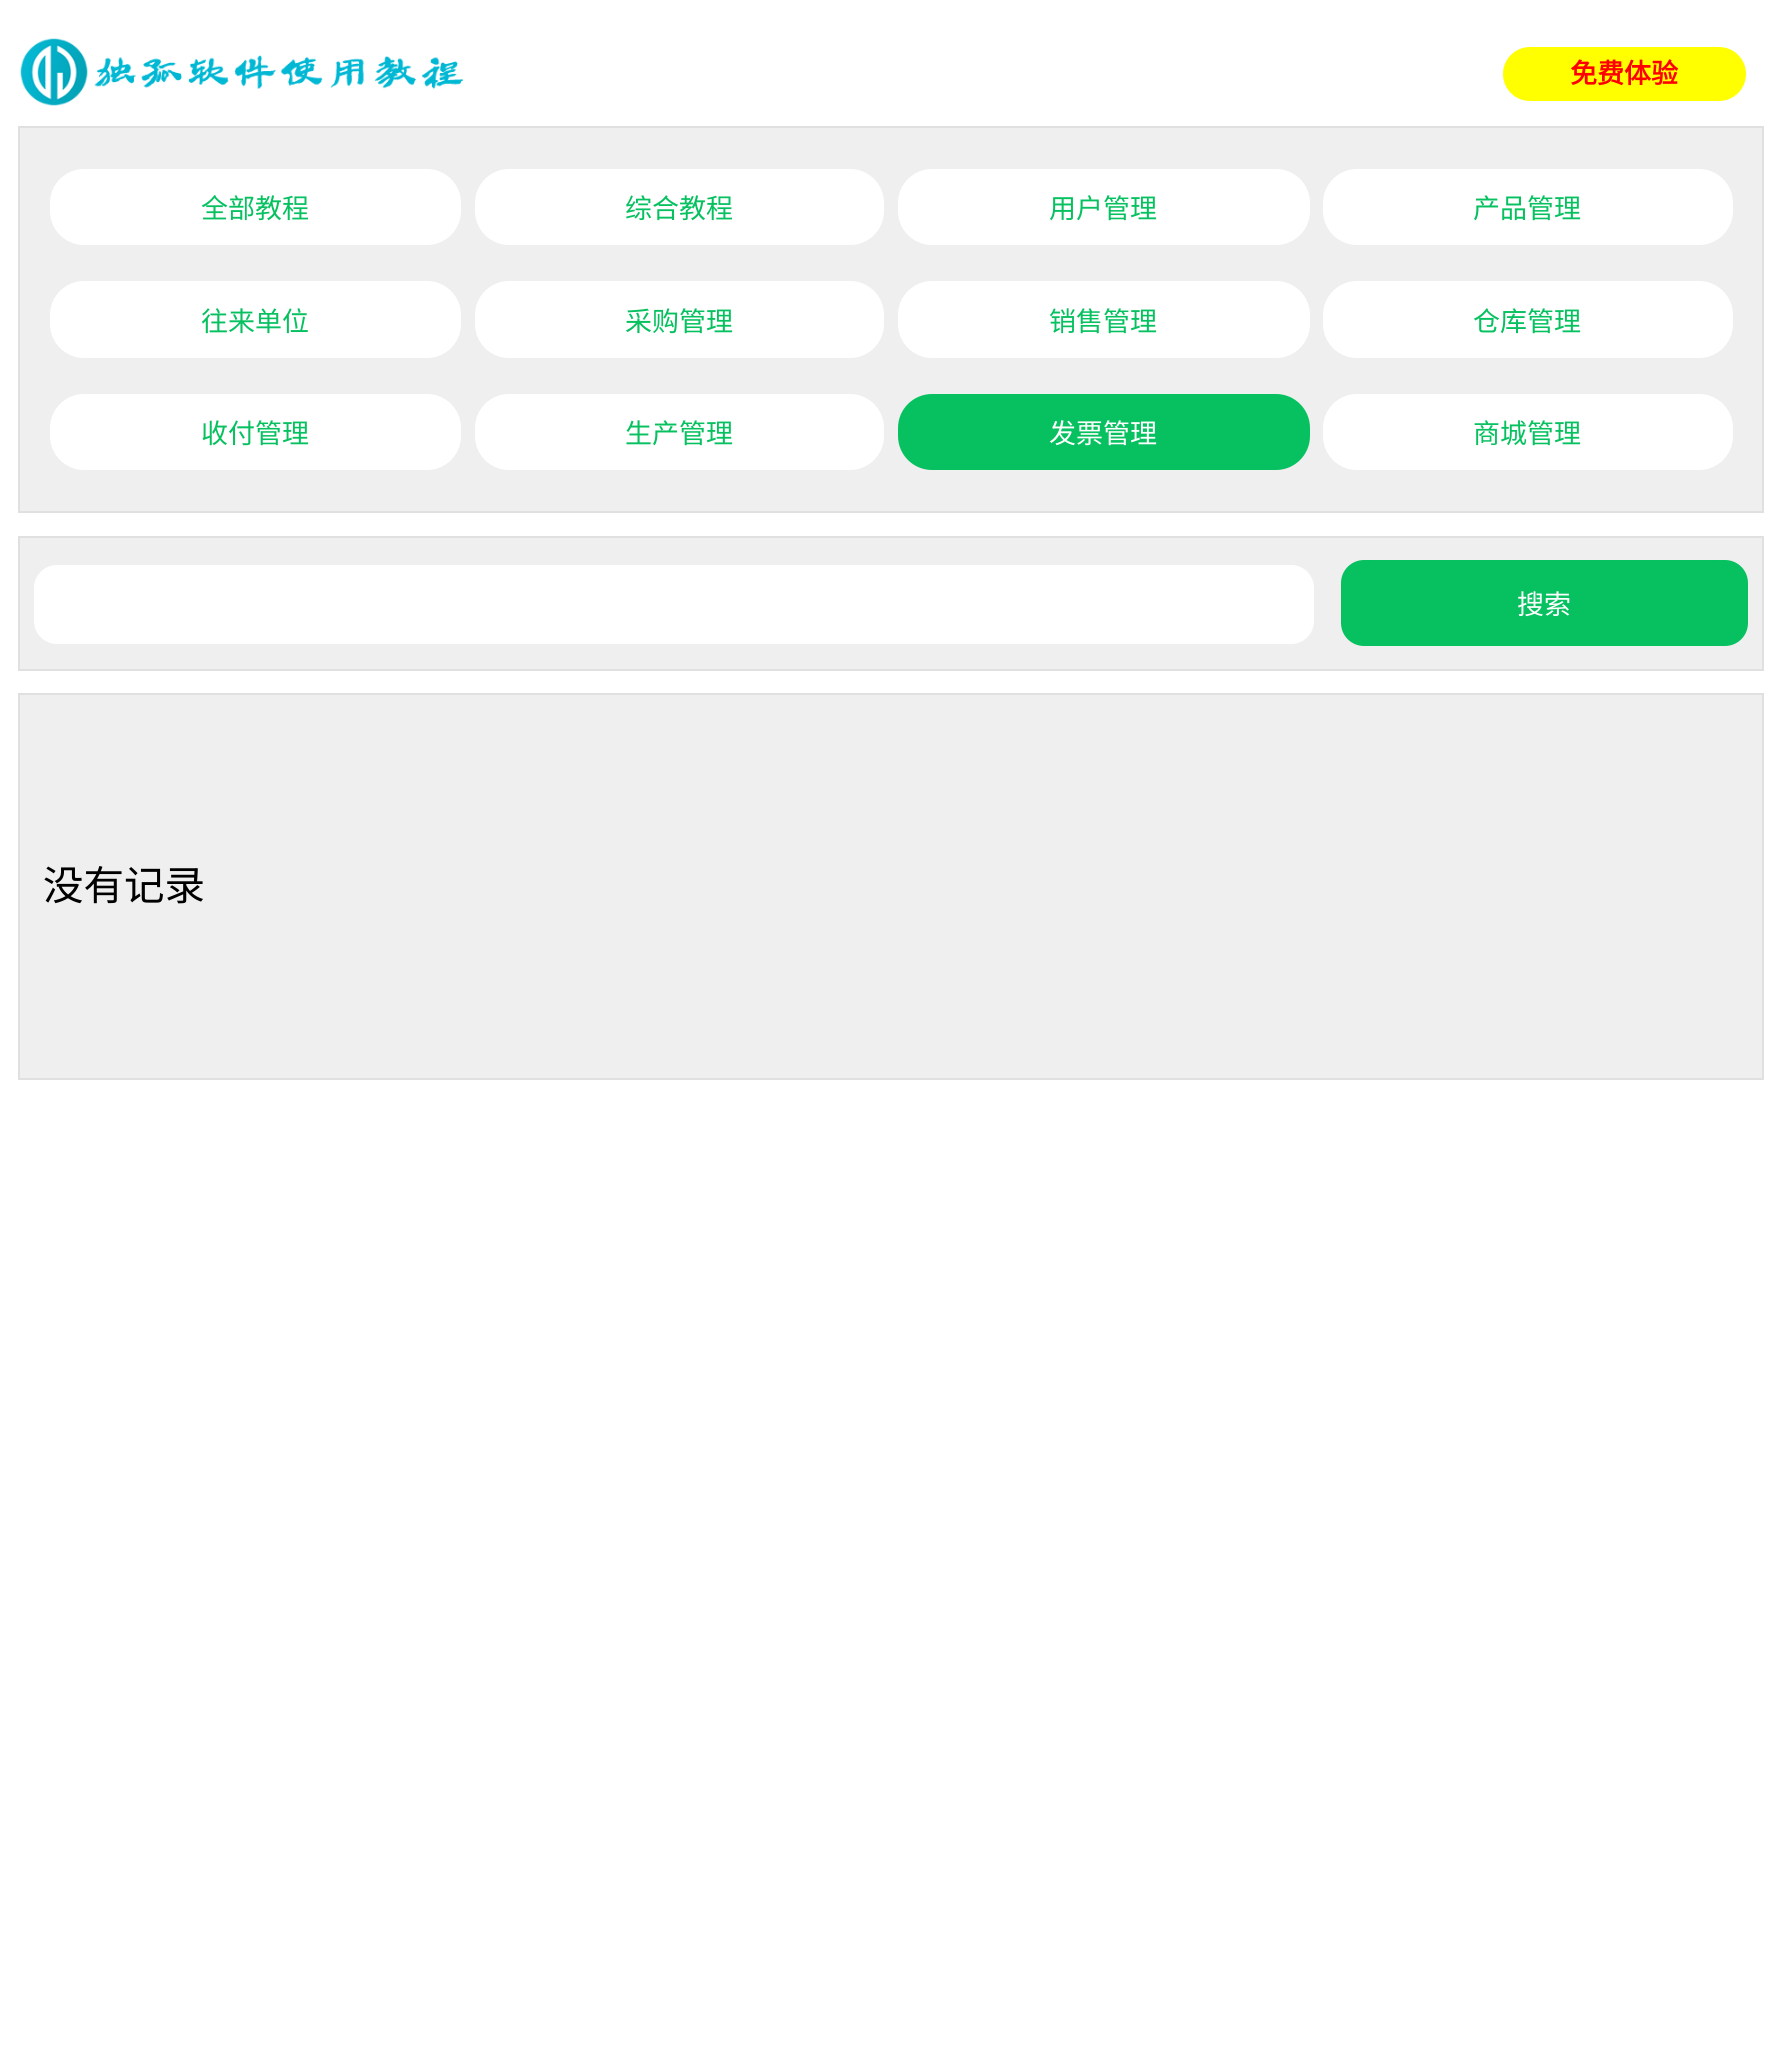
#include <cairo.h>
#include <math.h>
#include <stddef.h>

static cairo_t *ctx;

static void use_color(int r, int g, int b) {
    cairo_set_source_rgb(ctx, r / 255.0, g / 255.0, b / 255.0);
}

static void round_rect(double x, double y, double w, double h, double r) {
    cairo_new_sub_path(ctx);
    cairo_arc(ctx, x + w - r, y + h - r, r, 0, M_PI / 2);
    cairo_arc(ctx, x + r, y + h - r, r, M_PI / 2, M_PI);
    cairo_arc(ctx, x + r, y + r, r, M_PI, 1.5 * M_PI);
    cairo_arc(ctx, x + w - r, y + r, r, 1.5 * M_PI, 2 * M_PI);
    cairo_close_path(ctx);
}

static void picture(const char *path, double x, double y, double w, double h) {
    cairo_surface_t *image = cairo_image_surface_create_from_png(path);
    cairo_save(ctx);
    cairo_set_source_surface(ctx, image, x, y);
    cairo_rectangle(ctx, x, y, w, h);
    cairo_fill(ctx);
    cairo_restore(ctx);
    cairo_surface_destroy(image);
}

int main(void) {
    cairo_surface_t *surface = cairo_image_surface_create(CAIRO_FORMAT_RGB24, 1781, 2052);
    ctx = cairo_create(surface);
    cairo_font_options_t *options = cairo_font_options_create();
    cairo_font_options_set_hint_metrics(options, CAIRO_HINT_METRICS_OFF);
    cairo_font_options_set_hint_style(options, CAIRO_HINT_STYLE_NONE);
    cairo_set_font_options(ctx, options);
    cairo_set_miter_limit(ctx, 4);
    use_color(255, 255, 255);
    cairo_paint(ctx);
    picture("img1.png", 20, 38, 444, 68);
    use_color(255, 255, 0);
    round_rect(1503, 47, 243, 54, 27);
    cairo_fill(ctx);
    cairo_select_font_face(ctx, "Noto Sans CJK SC", CAIRO_FONT_SLANT_NORMAL, CAIRO_FONT_WEIGHT_BOLD);
    cairo_set_font_size(ctx, 27);
    use_color(255, 0, 0);
    cairo_move_to(ctx, 1570, 83);
    cairo_show_text(ctx, "免费体验");
    use_color(239, 239, 239);
    cairo_rectangle(ctx, 19, 127, 1744, 385);
    cairo_fill_preserve(ctx);
    use_color(224, 224, 224);
    cairo_stroke(ctx);
    use_color(255, 255, 255);
    round_rect(50, 169, 411, 76, 34);
    cairo_fill(ctx);
    cairo_select_font_face(ctx, "Noto Sans CJK SC", CAIRO_FONT_SLANT_NORMAL, CAIRO_FONT_WEIGHT_NORMAL);
    use_color(7, 193, 96);
    cairo_move_to(ctx, 201, 218);
    cairo_show_text(ctx, "全部教程");
    use_color(255, 255, 255);
    round_rect(475, 169, 409, 76, 34);
    cairo_fill(ctx);
    use_color(7, 193, 96);
    cairo_move_to(ctx, 625, 218);
    cairo_show_text(ctx, "综合教程");
    use_color(255, 255, 255);
    round_rect(898, 169, 412, 76, 34);
    cairo_fill(ctx);
    use_color(7, 193, 96);
    cairo_move_to(ctx, 1049, 218);
    cairo_show_text(ctx, "用户管理");
    use_color(255, 255, 255);
    round_rect(1323, 169, 410, 76, 34);
    cairo_fill(ctx);
    use_color(7, 193, 96);
    cairo_move_to(ctx, 1473, 218);
    cairo_show_text(ctx, "产品管理");
    use_color(255, 255, 255);
    round_rect(50, 281, 411, 77, 34);
    cairo_fill(ctx);
    use_color(7, 193, 96);
    cairo_move_to(ctx, 201, 331);
    cairo_show_text(ctx, "往来单位");
    use_color(255, 255, 255);
    round_rect(475, 281, 409, 77, 34);
    cairo_fill(ctx);
    use_color(7, 193, 96);
    cairo_move_to(ctx, 625, 331);
    cairo_show_text(ctx, "采购管理");
    use_color(255, 255, 255);
    round_rect(898, 281, 412, 77, 34);
    cairo_fill(ctx);
    use_color(7, 193, 96);
    cairo_move_to(ctx, 1049, 331);
    cairo_show_text(ctx, "销售管理");
    use_color(255, 255, 255);
    round_rect(1323, 281, 410, 77, 34);
    cairo_fill(ctx);
    use_color(7, 193, 96);
    cairo_move_to(ctx, 1473, 331);
    cairo_show_text(ctx, "仓库管理");
    use_color(255, 255, 255);
    round_rect(50, 394, 411, 76, 34);
    cairo_fill(ctx);
    use_color(7, 193, 96);
    cairo_move_to(ctx, 201, 443);
    cairo_show_text(ctx, "收付管理");
    use_color(255, 255, 255);
    round_rect(475, 394, 409, 76, 34);
    cairo_fill(ctx);
    use_color(7, 193, 96);
    cairo_move_to(ctx, 625, 443);
    cairo_show_text(ctx, "生产管理");
    round_rect(898, 394, 412, 76, 34);
    cairo_fill(ctx);
    use_color(255, 255, 255);
    cairo_move_to(ctx, 1049, 443);
    cairo_show_text(ctx, "发票管理");
    round_rect(1323, 394, 410, 76, 34);
    cairo_fill(ctx);
    use_color(7, 193, 96);
    cairo_move_to(ctx, 1473, 443);
    cairo_show_text(ctx, "商城管理");
    use_color(239, 239, 239);
    cairo_rectangle(ctx, 19, 537, 1744, 133);
    cairo_fill_preserve(ctx);
    use_color(224, 224, 224);
    cairo_stroke(ctx);
    use_color(255, 255, 255);
    round_rect(34, 565, 1280, 79, 23);
    cairo_fill(ctx);
    use_color(7, 193, 96);
    round_rect(1341, 560, 407, 86, 23);
    cairo_fill(ctx);
    use_color(255, 255, 255);
    cairo_move_to(ctx, 1517, 614);
    cairo_show_text(ctx, "搜索");
    use_color(239, 239, 239);
    cairo_rectangle(ctx, 19, 694, 1744, 385);
    cairo_fill_preserve(ctx);
    use_color(224, 224, 224);
    cairo_stroke(ctx);
    cairo_set_font_size(ctx, 40.5);
    use_color(0, 0, 0);
    cairo_move_to(ctx, 43, 900);
    cairo_show_text(ctx, "没有记录");
    cairo_surface_write_to_png(surface, "result.png");
    cairo_font_options_destroy(options);
    cairo_destroy(ctx);
    cairo_surface_destroy(surface);
    return 0;
}
